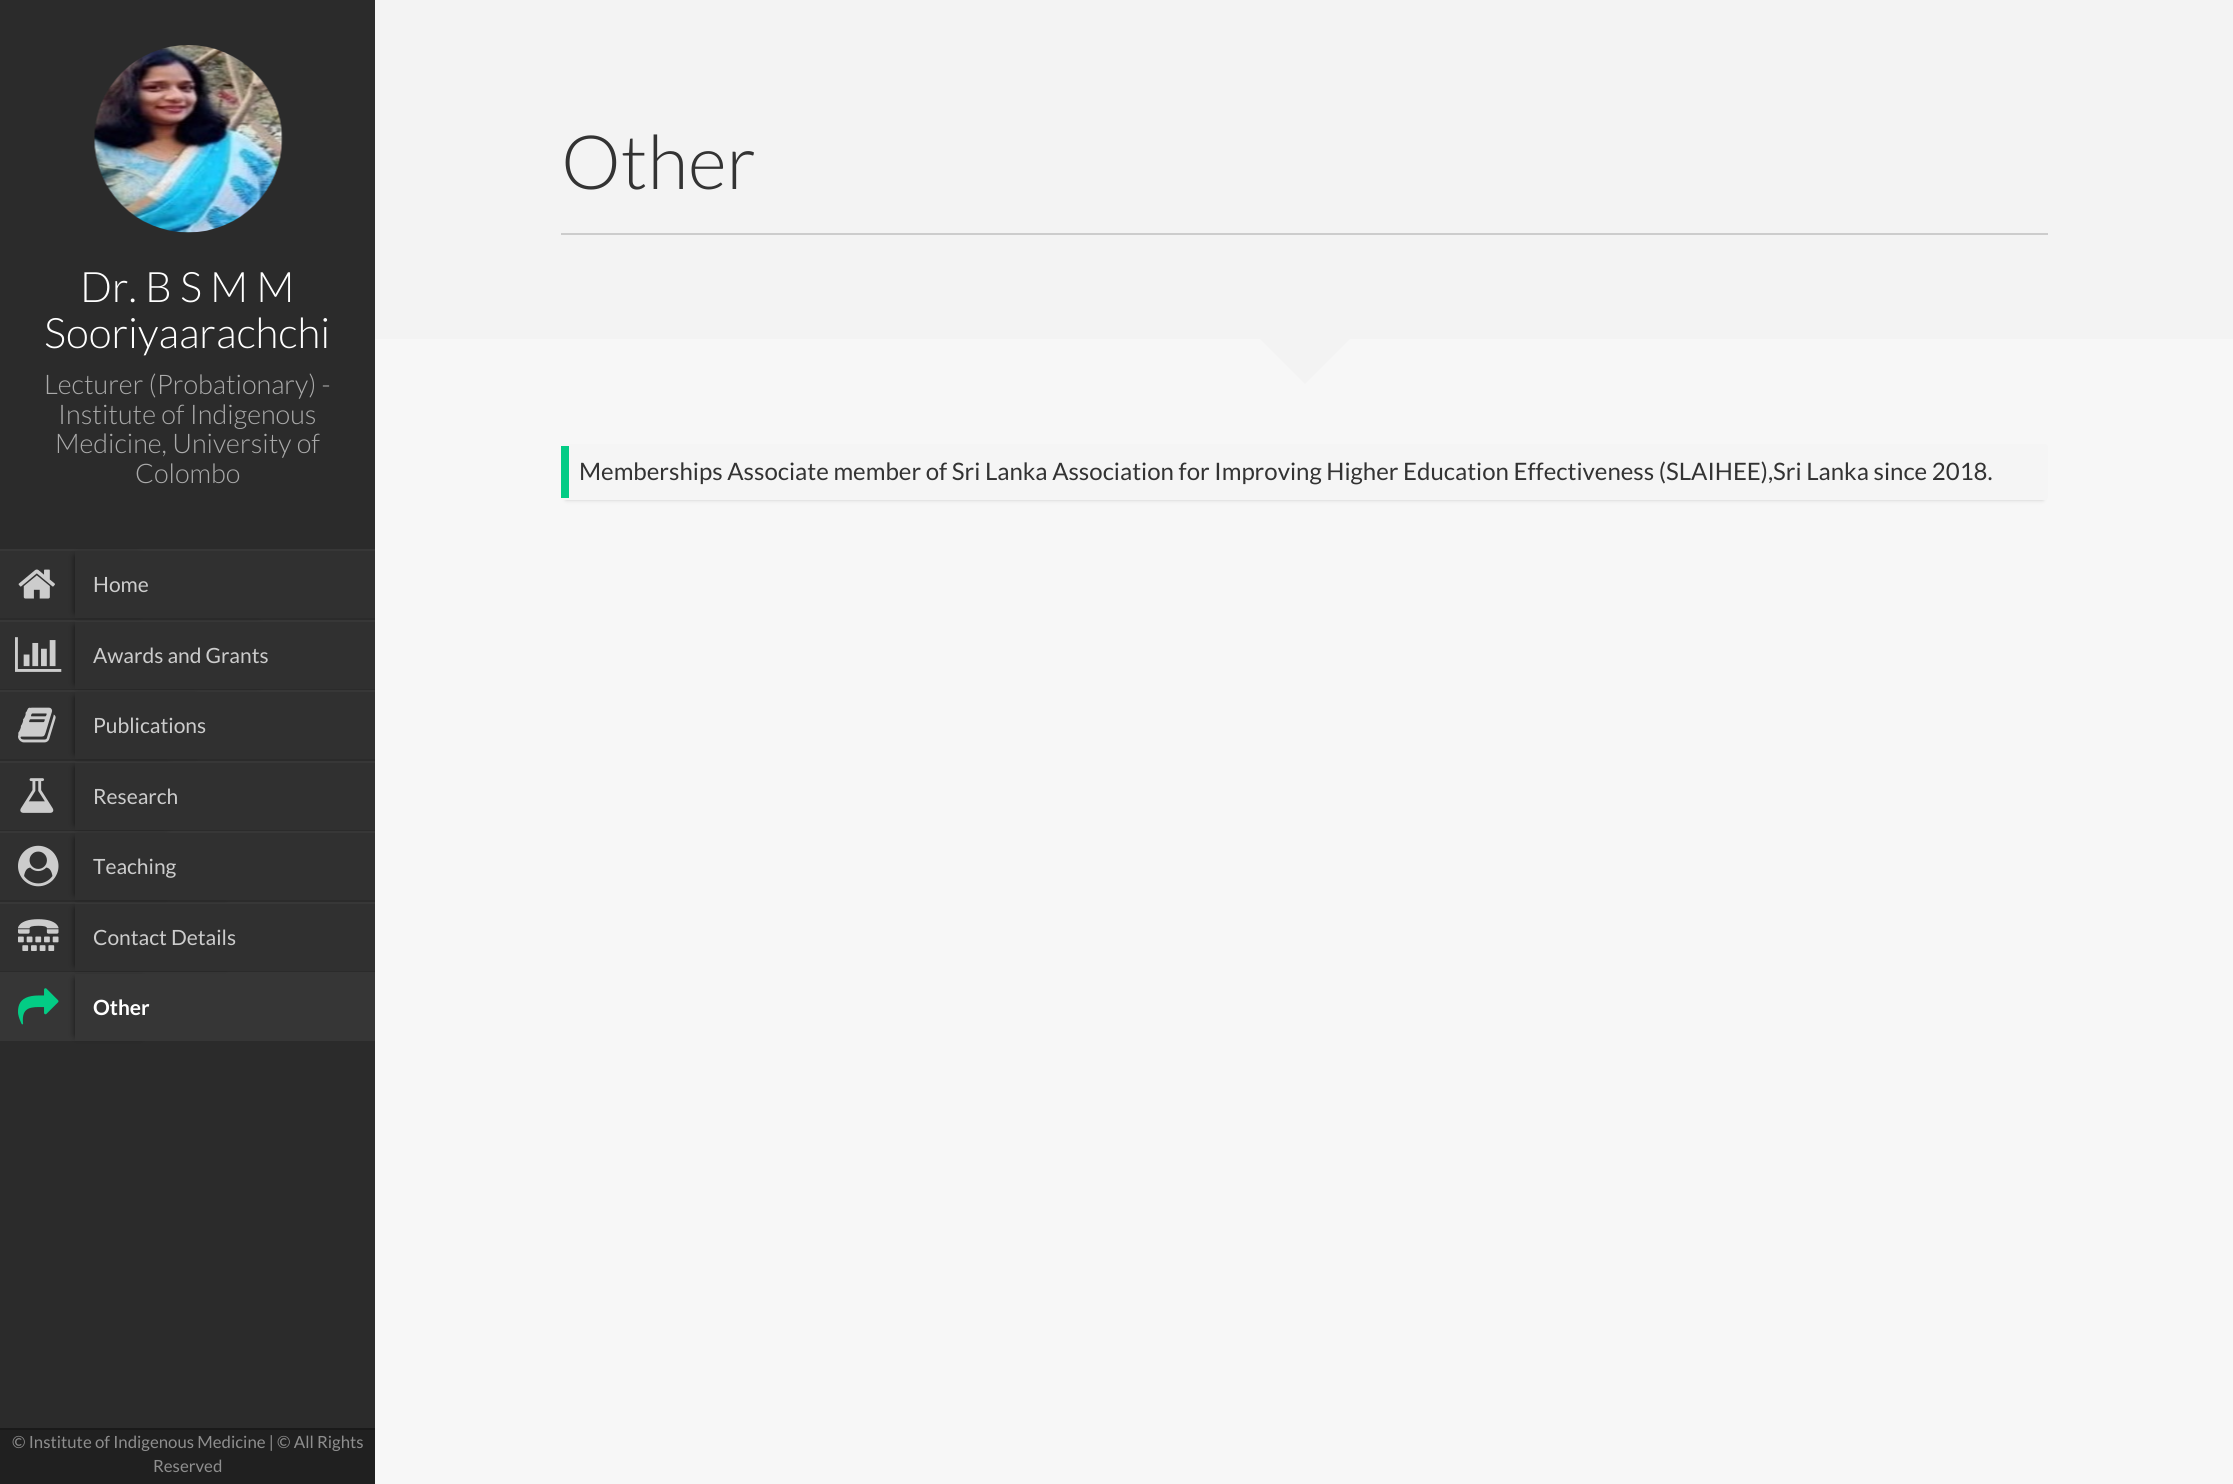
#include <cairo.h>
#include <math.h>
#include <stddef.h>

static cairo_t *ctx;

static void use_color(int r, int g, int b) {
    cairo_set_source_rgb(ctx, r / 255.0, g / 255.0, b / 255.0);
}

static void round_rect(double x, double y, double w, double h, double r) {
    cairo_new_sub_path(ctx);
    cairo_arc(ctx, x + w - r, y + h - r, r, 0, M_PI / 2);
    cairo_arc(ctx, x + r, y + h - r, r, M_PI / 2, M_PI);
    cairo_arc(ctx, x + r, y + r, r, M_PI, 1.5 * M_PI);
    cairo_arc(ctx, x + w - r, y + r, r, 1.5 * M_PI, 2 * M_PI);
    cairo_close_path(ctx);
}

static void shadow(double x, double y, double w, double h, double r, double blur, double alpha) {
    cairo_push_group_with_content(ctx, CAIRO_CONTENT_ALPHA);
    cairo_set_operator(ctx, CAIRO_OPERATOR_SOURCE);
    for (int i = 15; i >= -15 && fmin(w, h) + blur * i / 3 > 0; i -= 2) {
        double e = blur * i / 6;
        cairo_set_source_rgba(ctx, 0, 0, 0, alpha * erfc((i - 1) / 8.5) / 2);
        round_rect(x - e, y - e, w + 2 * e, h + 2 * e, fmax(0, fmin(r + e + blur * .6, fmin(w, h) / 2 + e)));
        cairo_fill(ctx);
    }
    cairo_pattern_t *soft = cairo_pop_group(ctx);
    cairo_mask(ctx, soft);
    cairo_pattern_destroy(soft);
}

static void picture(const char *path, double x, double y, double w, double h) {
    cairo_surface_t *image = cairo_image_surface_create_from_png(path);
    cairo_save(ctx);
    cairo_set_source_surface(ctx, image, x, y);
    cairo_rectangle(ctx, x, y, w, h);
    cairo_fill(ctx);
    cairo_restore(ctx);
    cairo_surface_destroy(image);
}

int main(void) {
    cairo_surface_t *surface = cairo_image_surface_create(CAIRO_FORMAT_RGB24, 2233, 1484);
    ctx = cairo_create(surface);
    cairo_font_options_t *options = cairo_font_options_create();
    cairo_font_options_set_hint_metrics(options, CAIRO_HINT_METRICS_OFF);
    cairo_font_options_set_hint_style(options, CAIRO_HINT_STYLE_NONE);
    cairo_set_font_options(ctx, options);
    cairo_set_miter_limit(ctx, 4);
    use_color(43, 43, 43);
    cairo_paint(ctx);
    picture("img1.png", 94, 45, 189, 188);
    cairo_select_font_face(ctx, "Lato Light", CAIRO_FONT_SLANT_NORMAL, CAIRO_FONT_WEIGHT_NORMAL);
    cairo_set_font_size(ctx, 42);
    use_color(255, 255, 255);
    cairo_move_to(ctx, 80, 302);
    cairo_show_text(ctx, "Dr. B S M M");
    cairo_move_to(ctx, 44, 348);
    cairo_show_text(ctx, "Sooriyaarachchi");
    cairo_set_font_size(ctx, 27);
    use_color(170, 170, 170);
    cairo_move_to(ctx, 44, 394);
    cairo_show_text(ctx, "Lecturer (Probationary) -");
    cairo_move_to(ctx, 58, 424);
    cairo_show_text(ctx, "Institute of Indigenous");
    cairo_move_to(ctx, 55, 453);
    cairo_show_text(ctx, "Medicine, University of");
    cairo_move_to(ctx, 135, 483);
    cairo_show_text(ctx, "Colombo");
    use_color(48, 48, 48);
    cairo_rectangle(ctx, 0, 551, 375, 67);
    cairo_fill(ctx);
    use_color(55, 55, 55);
    cairo_rectangle(ctx, 0, 549, 375, 2);
    cairo_fill(ctx);
    picture("img2.png", 18, 569, 37, 30);
    use_color(48, 48, 48);
    cairo_rectangle(ctx, 0, 622, 375, 67);
    cairo_fill(ctx);
    use_color(55, 55, 55);
    cairo_rectangle(ctx, 0, 620, 375, 2);
    cairo_fill(ctx);
    cairo_save(ctx);
    cairo_set_fill_rule(ctx, CAIRO_FILL_RULE_EVEN_ODD);
    cairo_new_path(ctx);
    cairo_move_to(ctx, 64, 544);
    cairo_line_to(ctx, 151, 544);
    cairo_line_to(ctx, 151, 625);
    cairo_line_to(ctx, 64, 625);
    cairo_close_path(ctx);
    cairo_move_to(ctx, 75, 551);
    cairo_line_to(ctx, 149, 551);
    cairo_line_to(ctx, 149, 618);
    cairo_line_to(ctx, 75, 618);
    cairo_close_path(ctx);
    cairo_clip(ctx);
    use_color(0, 0, 0);
    shadow(77, 557, 61, 55, 0, 4, 1);
    cairo_restore(ctx);
    cairo_select_font_face(ctx, "Lato", CAIRO_FONT_SLANT_NORMAL, CAIRO_FONT_WEIGHT_NORMAL);
    cairo_set_font_size(ctx, 21);
    use_color(204, 204, 204);
    cairo_move_to(ctx, 93, 592);
    cairo_show_text(ctx, "Home");
    picture("img3.png", 15, 637, 47, 35);
    use_color(48, 48, 48);
    cairo_rectangle(ctx, 0, 692, 375, 67);
    cairo_fill(ctx);
    use_color(55, 55, 55);
    cairo_rectangle(ctx, 0, 690, 375, 2);
    cairo_fill(ctx);
    cairo_save(ctx);
    cairo_set_fill_rule(ctx, CAIRO_FILL_RULE_EVEN_ODD);
    cairo_new_path(ctx);
    cairo_move_to(ctx, 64, 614);
    cairo_line_to(ctx, 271, 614);
    cairo_line_to(ctx, 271, 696);
    cairo_line_to(ctx, 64, 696);
    cairo_close_path(ctx);
    cairo_move_to(ctx, 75, 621);
    cairo_line_to(ctx, 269, 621);
    cairo_line_to(ctx, 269, 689);
    cairo_line_to(ctx, 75, 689);
    cairo_close_path(ctx);
    cairo_clip(ctx);
    use_color(0, 0, 0);
    shadow(77, 627, 181, 56, 0, 4, 1);
    cairo_restore(ctx);
    use_color(204, 204, 204);
    cairo_move_to(ctx, 93, 663);
    cairo_show_text(ctx, "Awards and Grants");
    picture("img4.png", 18, 707, 38, 36);
    use_color(48, 48, 48);
    cairo_rectangle(ctx, 0, 763, 375, 67);
    cairo_fill(ctx);
    use_color(55, 55, 55);
    cairo_rectangle(ctx, 0, 761, 375, 2);
    cairo_fill(ctx);
    cairo_save(ctx);
    cairo_set_fill_rule(ctx, CAIRO_FILL_RULE_EVEN_ODD);
    cairo_new_path(ctx);
    cairo_move_to(ctx, 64, 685);
    cairo_line_to(ctx, 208, 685);
    cairo_line_to(ctx, 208, 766);
    cairo_line_to(ctx, 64, 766);
    cairo_close_path(ctx);
    cairo_move_to(ctx, 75, 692);
    cairo_line_to(ctx, 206, 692);
    cairo_line_to(ctx, 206, 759);
    cairo_line_to(ctx, 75, 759);
    cairo_close_path(ctx);
    cairo_clip(ctx);
    use_color(0, 0, 0);
    shadow(77, 698, 118, 55, 0, 4, 1);
    cairo_restore(ctx);
    use_color(204, 204, 204);
    cairo_move_to(ctx, 93, 733);
    cairo_show_text(ctx, "Publications");
    picture("img5.png", 20, 778, 34, 35);
    use_color(48, 48, 48);
    cairo_rectangle(ctx, 0, 833, 375, 67);
    cairo_fill(ctx);
    use_color(55, 55, 55);
    cairo_rectangle(ctx, 0, 831, 375, 2);
    cairo_fill(ctx);
    cairo_save(ctx);
    cairo_set_fill_rule(ctx, CAIRO_FILL_RULE_EVEN_ODD);
    cairo_new_path(ctx);
    cairo_move_to(ctx, 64, 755);
    cairo_line_to(ctx, 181, 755);
    cairo_line_to(ctx, 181, 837);
    cairo_line_to(ctx, 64, 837);
    cairo_close_path(ctx);
    cairo_move_to(ctx, 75, 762);
    cairo_line_to(ctx, 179, 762);
    cairo_line_to(ctx, 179, 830);
    cairo_line_to(ctx, 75, 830);
    cairo_close_path(ctx);
    cairo_clip(ctx);
    use_color(0, 0, 0);
    shadow(77, 768, 91, 56, 0, 4, 1);
    cairo_restore(ctx);
    use_color(204, 204, 204);
    cairo_move_to(ctx, 93, 804);
    cairo_show_text(ctx, "Research");
    picture("img6.png", 18, 845, 41, 42);
    use_color(48, 48, 48);
    cairo_rectangle(ctx, 0, 904, 375, 67);
    cairo_fill(ctx);
    use_color(55, 55, 55);
    cairo_rectangle(ctx, 0, 902, 375, 2);
    cairo_fill(ctx);
    cairo_save(ctx);
    cairo_set_fill_rule(ctx, CAIRO_FILL_RULE_EVEN_ODD);
    cairo_new_path(ctx);
    cairo_move_to(ctx, 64, 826);
    cairo_line_to(ctx, 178, 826);
    cairo_line_to(ctx, 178, 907);
    cairo_line_to(ctx, 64, 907);
    cairo_close_path(ctx);
    cairo_move_to(ctx, 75, 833);
    cairo_line_to(ctx, 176, 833);
    cairo_line_to(ctx, 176, 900);
    cairo_line_to(ctx, 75, 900);
    cairo_close_path(ctx);
    cairo_clip(ctx);
    use_color(0, 0, 0);
    shadow(77, 839, 88, 55, 0, 4, 1);
    cairo_restore(ctx);
    use_color(204, 204, 204);
    cairo_move_to(ctx, 93, 874);
    cairo_show_text(ctx, "Teaching");
    picture("img7.png", 18, 919, 41, 32);
    use_color(54, 54, 54);
    cairo_rectangle(ctx, 0, 972, 375, 69);
    cairo_fill(ctx);
    cairo_save(ctx);
    cairo_set_fill_rule(ctx, CAIRO_FILL_RULE_EVEN_ODD);
    cairo_new_path(ctx);
    cairo_move_to(ctx, 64, 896);
    cairo_line_to(ctx, 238, 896);
    cairo_line_to(ctx, 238, 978);
    cairo_line_to(ctx, 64, 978);
    cairo_close_path(ctx);
    cairo_move_to(ctx, 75, 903);
    cairo_line_to(ctx, 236, 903);
    cairo_line_to(ctx, 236, 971);
    cairo_line_to(ctx, 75, 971);
    cairo_close_path(ctx);
    cairo_clip(ctx);
    use_color(0, 0, 0);
    shadow(77, 909, 148, 56, 0, 4, 1);
    cairo_restore(ctx);
    use_color(204, 204, 204);
    cairo_move_to(ctx, 93, 945);
    cairo_show_text(ctx, "Contact Details");
    picture("img8.png", 18, 988, 41, 37);
    cairo_save(ctx);
    cairo_set_fill_rule(ctx, CAIRO_FILL_RULE_EVEN_ODD);
    cairo_new_path(ctx);
    cairo_move_to(ctx, 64, 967);
    cairo_line_to(ctx, 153, 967);
    cairo_line_to(ctx, 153, 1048);
    cairo_line_to(ctx, 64, 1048);
    cairo_close_path(ctx);
    cairo_move_to(ctx, 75, 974);
    cairo_line_to(ctx, 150, 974);
    cairo_line_to(ctx, 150, 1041);
    cairo_line_to(ctx, 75, 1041);
    cairo_close_path(ctx);
    cairo_clip(ctx);
    use_color(0, 0, 0);
    shadow(77, 980, 63, 55, 0, 4, 1);
    cairo_restore(ctx);
    cairo_select_font_face(ctx, "Lato", CAIRO_FONT_SLANT_NORMAL, CAIRO_FONT_WEIGHT_BOLD);
    use_color(255, 255, 255);
    cairo_move_to(ctx, 93, 1015);
    cairo_show_text(ctx, "Other");
    use_color(32, 32, 32);
    cairo_rectangle(ctx, 0, 1430, 375, 54);
    cairo_fill(ctx);
    use_color(26, 26, 26);
    cairo_rectangle(ctx, 0, 1428, 375, 2);
    cairo_fill(ctx);
    cairo_select_font_face(ctx, "Lato", CAIRO_FONT_SLANT_NORMAL, CAIRO_FONT_WEIGHT_NORMAL);
    cairo_set_font_size(ctx, 16.8);
    use_color(142, 142, 142);
    cairo_move_to(ctx, 12, 1448);
    cairo_show_text(ctx, "© Institute of Indigenous Medicine | © All Rights");
    cairo_move_to(ctx, 153, 1472);
    cairo_show_text(ctx, "Reserved");
    use_color(247, 247, 247);
    cairo_rectangle(ctx, 375, 339, 1858, 1145);
    cairo_fill(ctx);
    use_color(243, 243, 243);
    cairo_rectangle(ctx, 375, 0, 1858, 339);
    cairo_fill(ctx);
    use_color(204, 204, 204);
    cairo_rectangle(ctx, 561, 233, 1487, 2);
    cairo_fill(ctx);
    cairo_select_font_face(ctx, "Lato Light", CAIRO_FONT_SLANT_NORMAL, CAIRO_FONT_WEIGHT_NORMAL);
    cairo_set_font_size(ctx, 75);
    use_color(51, 51, 51);
    cairo_move_to(ctx, 561, 189);
    cairo_show_text(ctx, "Other");
    use_color(243, 243, 243);
    cairo_new_path(ctx);
    cairo_move_to(ctx, 1260, 339);
    cairo_line_to(ctx, 1350, 339);
    cairo_line_to(ctx, 1305, 384);
    cairo_close_path(ctx);
    cairo_fill(ctx);
    use_color(204, 204, 204);
    shadow(566, 453, 1477, 47, 0, 2, 1);
    use_color(245, 245, 245);
    round_rect(561, 444, 1487, 56, 3);
    cairo_fill(ctx);
    use_color(3, 204, 133);
    cairo_rectangle(ctx, 561, 446, 8, 52);
    cairo_fill(ctx);
    cairo_select_font_face(ctx, "Lato", CAIRO_FONT_SLANT_NORMAL, CAIRO_FONT_WEIGHT_NORMAL);
    cairo_set_font_size(ctx, 24);
    use_color(51, 51, 51);
    cairo_move_to(ctx, 579, 480);
    cairo_show_text(ctx, "Memberships Associate member of Sri Lanka Association for Improving Higher Education Effectiveness (SLAIHEE),Sri Lanka since 2018.");
    cairo_surface_write_to_png(surface, "result.png");
    cairo_font_options_destroy(options);
    cairo_destroy(ctx);
    cairo_surface_destroy(surface);
    return 0;
}
